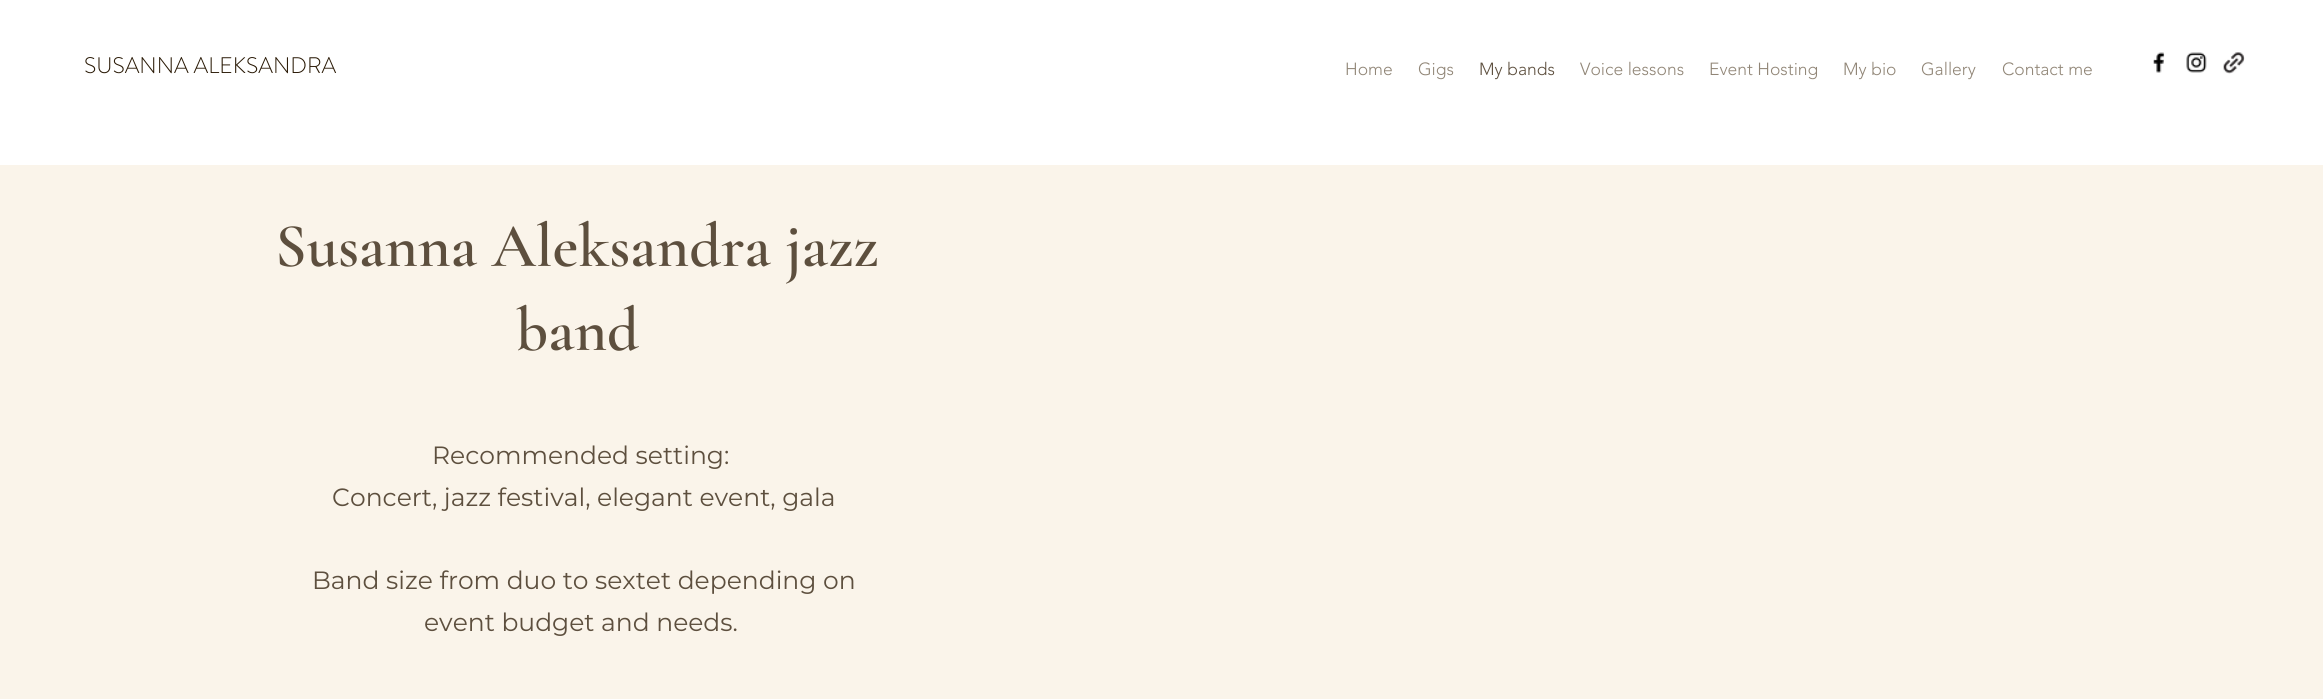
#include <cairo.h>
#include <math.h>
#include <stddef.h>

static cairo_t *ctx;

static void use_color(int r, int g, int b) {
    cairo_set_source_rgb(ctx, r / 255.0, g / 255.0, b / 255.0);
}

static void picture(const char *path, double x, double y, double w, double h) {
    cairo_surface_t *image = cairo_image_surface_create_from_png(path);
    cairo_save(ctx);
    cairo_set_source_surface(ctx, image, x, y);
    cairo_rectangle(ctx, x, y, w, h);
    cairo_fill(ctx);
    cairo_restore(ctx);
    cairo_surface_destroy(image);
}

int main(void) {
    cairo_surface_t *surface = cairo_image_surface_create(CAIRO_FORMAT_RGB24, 2323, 699);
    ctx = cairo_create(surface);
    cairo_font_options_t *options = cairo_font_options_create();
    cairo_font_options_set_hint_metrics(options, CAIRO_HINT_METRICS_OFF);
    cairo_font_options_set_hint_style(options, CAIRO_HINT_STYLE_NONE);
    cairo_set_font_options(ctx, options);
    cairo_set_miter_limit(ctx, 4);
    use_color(255, 255, 255);
    cairo_paint(ctx);
    cairo_select_font_face(ctx, "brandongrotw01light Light", CAIRO_FONT_SLANT_NORMAL, CAIRO_FONT_WEIGHT_NORMAL);
    cairo_set_font_size(ctx, 22.5);
    use_color(40, 24, 4);
    cairo_move_to(ctx, 84, 73);
    cairo_show_text(ctx, "SUSANNA ALEKSANDRA");
    cairo_select_font_face(ctx, "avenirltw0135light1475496 Light", CAIRO_FONT_SLANT_NORMAL, CAIRO_FONT_WEIGHT_NORMAL);
    cairo_set_font_size(ctx, 17.5);
    use_color(145, 134, 119);
    cairo_move_to(ctx, 1345, 75);
    cairo_show_text(ctx, "Home");
    cairo_move_to(ctx, 1418, 75);
    cairo_show_text(ctx, "Gigs");
    use_color(93, 79, 62);
    cairo_move_to(ctx, 1479, 75);
    cairo_show_text(ctx, "My bands");
    use_color(145, 134, 119);
    cairo_move_to(ctx, 1580, 75);
    cairo_show_text(ctx, "Voice lessons");
    cairo_move_to(ctx, 1709, 75);
    cairo_show_text(ctx, "Event Hosting");
    cairo_move_to(ctx, 1843, 75);
    cairo_show_text(ctx, "My bio");
    cairo_move_to(ctx, 1921, 75);
    cairo_show_text(ctx, "Gallery");
    cairo_move_to(ctx, 2002, 75);
    cairo_show_text(ctx, "Contact me");
    picture("img1.png", 2153, 52, 12, 21);
    picture("img2.png", 2186, 52, 21, 21);
    picture("img3.png", 2223, 52, 22, 22);
    use_color(250, 244, 234);
    cairo_rectangle(ctx, 0, 165, 2323, 534);
    cairo_fill(ctx);
    cairo_select_font_face(ctx, "Cormorant Garamond SemiBold", CAIRO_FONT_SLANT_NORMAL, CAIRO_FONT_WEIGHT_NORMAL);
    cairo_set_font_size(ctx, 62.5);
    use_color(93, 79, 62);
    cairo_move_to(ctx, 275, 266);
    cairo_show_text(ctx, "Susanna Aleksandra jazz");
    cairo_move_to(ctx, 516, 350);
    cairo_show_text(ctx, "band");
    cairo_select_font_face(ctx, "Montserrat", CAIRO_FONT_SLANT_NORMAL, CAIRO_FONT_WEIGHT_NORMAL);
    cairo_set_font_size(ctx, 25);
    cairo_move_to(ctx, 432, 464);
    cairo_show_text(ctx, "Recommended setting:");
    cairo_move_to(ctx, 332, 506);
    cairo_show_text(ctx, "Concert, jazz festival, elegant event, gala");
    cairo_move_to(ctx, 312, 589);
    cairo_show_text(ctx, "Band size from duo to sextet depending on");
    cairo_move_to(ctx, 424, 631);
    cairo_show_text(ctx, "event budget and needs.");
    cairo_surface_write_to_png(surface, "result.png");
    cairo_font_options_destroy(options);
    cairo_destroy(ctx);
    cairo_surface_destroy(surface);
    return 0;
}
